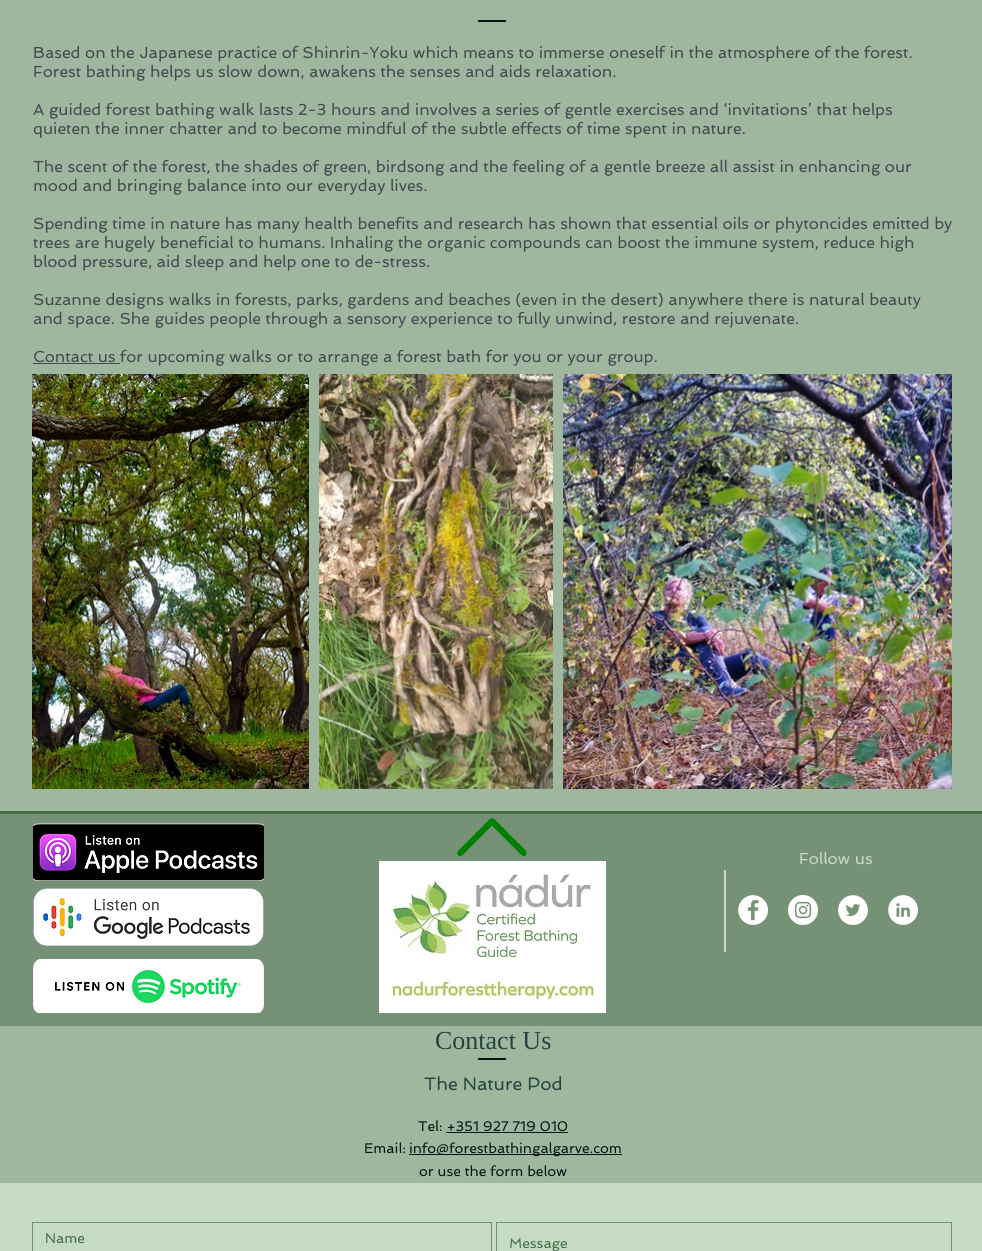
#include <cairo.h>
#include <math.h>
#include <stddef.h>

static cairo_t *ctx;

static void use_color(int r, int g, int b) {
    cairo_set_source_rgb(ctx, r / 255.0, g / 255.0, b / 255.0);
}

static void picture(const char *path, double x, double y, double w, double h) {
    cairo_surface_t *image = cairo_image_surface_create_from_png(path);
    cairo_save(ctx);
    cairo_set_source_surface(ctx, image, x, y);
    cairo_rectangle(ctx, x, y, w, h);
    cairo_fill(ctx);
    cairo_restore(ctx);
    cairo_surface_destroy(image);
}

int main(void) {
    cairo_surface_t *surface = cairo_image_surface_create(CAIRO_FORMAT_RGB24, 982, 1251);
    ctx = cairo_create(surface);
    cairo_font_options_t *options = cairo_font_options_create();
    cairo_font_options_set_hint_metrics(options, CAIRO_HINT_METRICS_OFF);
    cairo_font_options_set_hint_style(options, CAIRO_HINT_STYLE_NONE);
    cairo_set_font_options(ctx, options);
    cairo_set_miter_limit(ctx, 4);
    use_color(67, 110, 68);
    cairo_paint(ctx);
    use_color(159, 182, 159);
    cairo_rectangle(ctx, 0, 0, 982, 811);
    cairo_fill(ctx);
    use_color(1, 23, 19);
    cairo_rectangle(ctx, 478, 20, 28, 2);
    cairo_fill(ctx);
    cairo_select_font_face(ctx, "Spinnaker", CAIRO_FONT_SLANT_NORMAL, CAIRO_FONT_WEIGHT_NORMAL);
    cairo_set_font_size(ctx, 16);
    use_color(68, 73, 79);
    cairo_move_to(ctx, 33, 58);
    cairo_show_text(ctx, "Based on the Japanese practice of Shinrin-Yoku which means to immerse oneself in the atmosphere of the forest.");
    cairo_move_to(ctx, 33, 77);
    cairo_show_text(ctx, "Forest bathing helps us slow down, awakens the senses and aids relaxation.");
    cairo_move_to(ctx, 33, 115);
    cairo_show_text(ctx, "A guided forest bathing walk lasts 2-3 hours and involves a series of gentle exercises and ‘invitations’ that helps");
    cairo_move_to(ctx, 33, 134);
    cairo_show_text(ctx, "quieten the inner chatter and to become mindful of the subtle effects of time spent in nature.");
    cairo_move_to(ctx, 33, 172);
    cairo_show_text(ctx, "The scent of the forest, the shades of green, birdsong and the feeling of a gentle breeze all assist in enhancing our");
    cairo_move_to(ctx, 33, 191);
    cairo_show_text(ctx, "mood and bringing balance into our everyday lives.");
    cairo_move_to(ctx, 33, 229);
    cairo_show_text(ctx, "Spending time in nature has many health benefits and research has shown that essential oils or phytoncides emitted by");
    cairo_move_to(ctx, 33, 248);
    cairo_show_text(ctx, "trees are hugely beneficial to humans. Inhaling the organic compounds can boost the immune system, reduce high");
    cairo_move_to(ctx, 33, 267);
    cairo_show_text(ctx, "blood pressure, aid sleep and help one to de-stress.");
    cairo_move_to(ctx, 33, 305);
    cairo_show_text(ctx, "Suzanne designs walks in forests, parks, gardens and beaches (even in the desert) anywhere there is natural beauty");
    cairo_move_to(ctx, 33, 324);
    cairo_show_text(ctx, "and space. She guides people through a sensory experience to fully unwind, restore and rejuvenate.");
    cairo_rectangle(ctx, 33, 363, 87, 1);
    cairo_fill(ctx);
    cairo_move_to(ctx, 33, 362);
    cairo_show_text(ctx, "Contact us for upcoming walks or to arrange a forest bath for you or your group.");
    picture("img1.png", 32, 374, 277, 415);
    picture("img2.png", 319, 374, 234, 415);
    picture("img3.png", 563, 374, 389, 415);
    cairo_set_source_rgba(ctx, 0.773, 0.859, 0.776, 0.9);
    cairo_new_path(ctx);
    cairo_move_to(ctx, 908, 563.5);
    cairo_line_to(ctx, 909.5, 562);
    cairo_line_to(ctx, 927.5, 580);
    cairo_line_to(ctx, 909.5, 598);
    cairo_line_to(ctx, 908, 596.5);
    cairo_line_to(ctx, 924.5, 580);
    cairo_close_path(ctx);
    cairo_fill(ctx);
    use_color(118, 146, 118);
    cairo_rectangle(ctx, 0, 814, 982, 212);
    cairo_fill(ctx);
    picture("img4.png", 457, 818, 70, 38);
    picture("img5.png", 33, 823, 231, 58);
    use_color(197, 219, 198);
    cairo_move_to(ctx, 799, 864);
    cairo_show_text(ctx, "Follow us");
    cairo_rectangle(ctx, 724, 870, 2, 82);
    cairo_fill(ctx);
    picture("img6.png", 738, 895, 30, 30);
    picture("img7.png", 788, 895, 30, 30);
    picture("img8.png", 838, 895, 30, 30);
    picture("img9.png", 888, 895, 30, 30);
    picture("img10.png", 33, 888, 231, 58);
    picture("img11.png", 379, 861, 227, 152);
    picture("img12.png", 33, 959, 231, 54);
    use_color(159, 182, 159);
    cairo_rectangle(ctx, 0, 1026, 982, 157);
    cairo_fill(ctx);
    cairo_select_font_face(ctx, "Liberation Serif", CAIRO_FONT_SLANT_NORMAL, CAIRO_FONT_WEIGHT_NORMAL);
    cairo_set_font_size(ctx, 26);
    use_color(36, 69, 63);
    cairo_move_to(ctx, 435, 1049);
    cairo_show_text(ctx, "Contact Us");
    use_color(1, 23, 19);
    cairo_rectangle(ctx, 478, 1058, 28, 2);
    cairo_fill(ctx);
    cairo_select_font_face(ctx, "Spinnaker", CAIRO_FONT_SLANT_NORMAL, CAIRO_FONT_WEIGHT_NORMAL);
    cairo_set_font_size(ctx, 18);
    use_color(36, 69, 63);
    cairo_move_to(ctx, 424, 1090);
    cairo_show_text(ctx, "The Nature Pod");
    cairo_set_font_size(ctx, 14);
    use_color(1, 23, 19);
    cairo_move_to(ctx, 418, 1131);
    cairo_show_text(ctx, "Tel: +351 927 719 010");
    cairo_rectangle(ctx, 446, 1132, 122, 1);
    cairo_fill(ctx);
    cairo_move_to(ctx, 364, 1153);
    cairo_show_text(ctx, "Email:");
    cairo_rectangle(ctx, 409, 1154, 213, 1);
    cairo_fill(ctx);
    cairo_move_to(ctx, 409, 1153);
    cairo_show_text(ctx, "info@forestbathingalgarve.com");
    cairo_move_to(ctx, 419, 1176);
    cairo_show_text(ctx, "or use the form below");
    use_color(197, 219, 198);
    cairo_rectangle(ctx, 0, 1183, 982, 68);
    cairo_fill(ctx);
    cairo_rectangle(ctx, 32.5, 1222.5, 459, 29);
    use_color(118, 146, 118);
    cairo_set_line_width(ctx, 1);
    cairo_stroke(ctx);
    use_color(67, 110, 68);
    cairo_move_to(ctx, 45, 1243);
    cairo_show_text(ctx, "Name");
    cairo_rectangle(ctx, 496.5, 1222.5, 455, 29);
    use_color(118, 146, 118);
    cairo_stroke(ctx);
    use_color(67, 110, 68);
    cairo_move_to(ctx, 509, 1248);
    cairo_show_text(ctx, "Message");
    cairo_surface_write_to_png(surface, "result.png");
    cairo_font_options_destroy(options);
    cairo_destroy(ctx);
    cairo_surface_destroy(surface);
    return 0;
}
